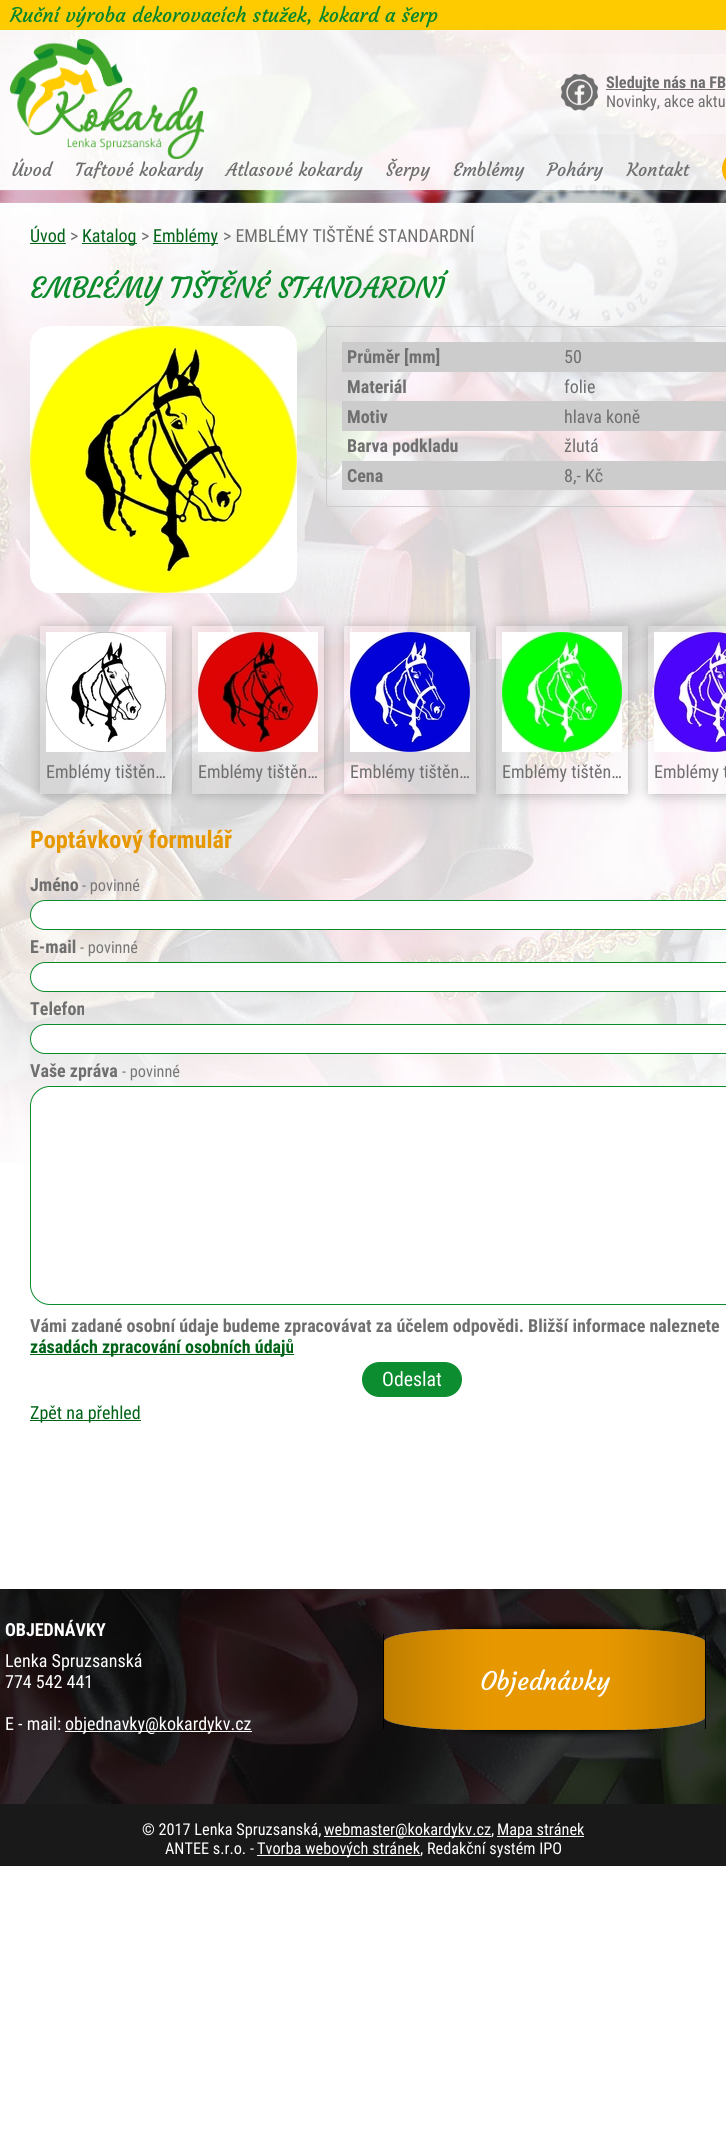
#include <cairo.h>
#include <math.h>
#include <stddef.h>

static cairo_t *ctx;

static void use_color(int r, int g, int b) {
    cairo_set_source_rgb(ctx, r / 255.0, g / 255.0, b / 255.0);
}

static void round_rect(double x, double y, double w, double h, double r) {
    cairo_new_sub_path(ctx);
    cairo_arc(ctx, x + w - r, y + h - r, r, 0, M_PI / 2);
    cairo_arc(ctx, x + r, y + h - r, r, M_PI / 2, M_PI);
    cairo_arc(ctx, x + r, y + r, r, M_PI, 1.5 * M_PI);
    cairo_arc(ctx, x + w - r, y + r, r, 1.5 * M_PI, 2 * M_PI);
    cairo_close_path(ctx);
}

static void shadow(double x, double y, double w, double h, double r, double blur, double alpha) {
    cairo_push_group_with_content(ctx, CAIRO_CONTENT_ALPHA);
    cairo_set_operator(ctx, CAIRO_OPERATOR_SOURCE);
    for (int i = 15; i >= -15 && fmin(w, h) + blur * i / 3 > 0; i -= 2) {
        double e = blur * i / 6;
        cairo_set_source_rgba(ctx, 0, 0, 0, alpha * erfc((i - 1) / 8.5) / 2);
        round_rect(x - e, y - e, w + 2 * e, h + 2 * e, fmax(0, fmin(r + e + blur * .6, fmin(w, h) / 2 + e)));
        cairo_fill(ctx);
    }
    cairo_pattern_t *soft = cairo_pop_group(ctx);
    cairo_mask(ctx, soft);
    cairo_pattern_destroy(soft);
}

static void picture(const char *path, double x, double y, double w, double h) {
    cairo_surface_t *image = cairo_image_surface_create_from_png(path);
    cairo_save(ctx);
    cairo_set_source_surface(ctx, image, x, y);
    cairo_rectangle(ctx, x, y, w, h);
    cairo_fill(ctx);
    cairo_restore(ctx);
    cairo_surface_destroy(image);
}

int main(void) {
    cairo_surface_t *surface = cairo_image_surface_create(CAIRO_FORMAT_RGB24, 726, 2155);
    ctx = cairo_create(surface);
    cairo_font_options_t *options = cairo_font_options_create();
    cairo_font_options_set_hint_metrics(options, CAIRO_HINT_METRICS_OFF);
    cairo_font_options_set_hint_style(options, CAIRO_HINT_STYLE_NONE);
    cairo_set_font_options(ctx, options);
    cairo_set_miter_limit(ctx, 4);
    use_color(255, 255, 255);
    cairo_paint(ctx);
    picture("img1.png", 0, 0, 726, 1163);
    cairo_select_font_face(ctx, "Courgette", CAIRO_FONT_SLANT_NORMAL, CAIRO_FONT_WEIGHT_NORMAL);
    cairo_set_font_size(ctx, 19.8);
    use_color(5, 134, 44);
    cairo_move_to(ctx, 10, 22);
    cairo_show_text(ctx, "Ruční výroba dekorovacích stužek, kokard a šerp");
    picture("img2.png", 10, 39, 194, 120);
    picture("img3.png", 561, 74, 37, 37);
    use_color(111, 111, 111);
    cairo_rectangle(ctx, 606, 89, 119, 1);
    cairo_fill(ctx);
    cairo_select_font_face(ctx, "Roboto Condensed", CAIRO_FONT_SLANT_NORMAL, CAIRO_FONT_WEIGHT_BOLD);
    cairo_set_font_size(ctx, 16.25);
    use_color(111, 111, 112);
    cairo_move_to(ctx, 606, 88);
    cairo_show_text(ctx, "Sledujte nás na FB");
    cairo_select_font_face(ctx, "Roboto Condensed", CAIRO_FONT_SLANT_NORMAL, CAIRO_FONT_WEIGHT_NORMAL);
    cairo_move_to(ctx, 606, 107);
    cairo_show_text(ctx, "Novinky, akce aktu");
    cairo_select_font_face(ctx, "Courgette", CAIRO_FONT_SLANT_NORMAL, CAIRO_FONT_WEIGHT_NORMAL);
    cairo_set_font_size(ctx, 18);
    cairo_move_to(ctx, 12, 176);
    cairo_show_text(ctx, "Úvod");
    cairo_move_to(ctx, 75, 176);
    cairo_show_text(ctx, "Taftové kokardy");
    cairo_move_to(ctx, 226, 176);
    cairo_show_text(ctx, "Atlasové kokardy");
    cairo_move_to(ctx, 386, 176);
    cairo_show_text(ctx, "Šerpy");
    cairo_move_to(ctx, 453, 176);
    cairo_show_text(ctx, "Emblémy");
    cairo_move_to(ctx, 547, 176);
    cairo_show_text(ctx, "Poháry");
    cairo_move_to(ctx, 627, 176);
    cairo_show_text(ctx, "Kontakt");
    picture("img4.png", 722, 157, 4, 24);
    cairo_select_font_face(ctx, "Roboto Condensed", CAIRO_FONT_SLANT_NORMAL, CAIRO_FONT_WEIGHT_NORMAL);
    use_color(0, 99, 23);
    cairo_move_to(ctx, 30, 242);
    cairo_show_text(ctx, "Úvod");
    cairo_rectangle(ctx, 30, 243, 36, 1);
    cairo_fill(ctx);
    use_color(111, 111, 112);
    cairo_move_to(ctx, 70, 242);
    cairo_show_text(ctx, ">");
    use_color(0, 99, 23);
    cairo_rectangle(ctx, 82, 243, 55, 1);
    cairo_fill(ctx);
    cairo_move_to(ctx, 82, 242);
    cairo_show_text(ctx, "Katalog");
    use_color(111, 111, 112);
    cairo_move_to(ctx, 141, 242);
    cairo_show_text(ctx, ">");
    use_color(0, 99, 23);
    cairo_rectangle(ctx, 153, 243, 65, 1);
    cairo_fill(ctx);
    cairo_move_to(ctx, 153, 242);
    cairo_show_text(ctx, "Emblémy");
    use_color(111, 111, 112);
    cairo_move_to(ctx, 223, 242);
    cairo_show_text(ctx, "> EMBLÉMY TIŠTĚNÉ STANDARDNÍ");
    cairo_select_font_face(ctx, "Courgette", CAIRO_FONT_SLANT_NORMAL, CAIRO_FONT_WEIGHT_NORMAL);
    cairo_set_font_size(ctx, 28.75);
    use_color(12, 139, 44);
    cairo_move_to(ctx, 30, 298);
    cairo_show_text(ctx, "EMBLÉMY TIŠTĚNÉ STANDARDNÍ");
    picture("img5.png", 30, 326, 267, 267);
    cairo_rectangle(ctx, 326.5, 326.5, 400, 180);
    use_color(204, 204, 204);
    cairo_set_line_width(ctx, 1);
    cairo_stroke(ctx);
    cairo_rectangle(ctx, 342, 342, 384, 30);
    cairo_fill(ctx);
    cairo_select_font_face(ctx, "Roboto Condensed", CAIRO_FONT_SLANT_NORMAL, CAIRO_FONT_WEIGHT_BOLD);
    cairo_set_font_size(ctx, 18);
    use_color(111, 111, 112);
    cairo_move_to(ctx, 347, 363);
    cairo_show_text(ctx, "Průměr [mm]");
    cairo_select_font_face(ctx, "Roboto Condensed", CAIRO_FONT_SLANT_NORMAL, CAIRO_FONT_WEIGHT_NORMAL);
    cairo_move_to(ctx, 564, 363);
    cairo_show_text(ctx, "50");
    cairo_select_font_face(ctx, "Roboto Condensed", CAIRO_FONT_SLANT_NORMAL, CAIRO_FONT_WEIGHT_BOLD);
    cairo_move_to(ctx, 347, 393);
    cairo_show_text(ctx, "Materiál");
    cairo_select_font_face(ctx, "Roboto Condensed", CAIRO_FONT_SLANT_NORMAL, CAIRO_FONT_WEIGHT_NORMAL);
    cairo_move_to(ctx, 564, 393);
    cairo_show_text(ctx, "folie");
    use_color(204, 204, 204);
    cairo_rectangle(ctx, 342, 401, 384, 30);
    cairo_fill(ctx);
    cairo_select_font_face(ctx, "Roboto Condensed", CAIRO_FONT_SLANT_NORMAL, CAIRO_FONT_WEIGHT_BOLD);
    use_color(111, 111, 112);
    cairo_move_to(ctx, 347, 423);
    cairo_show_text(ctx, "Motiv");
    cairo_select_font_face(ctx, "Roboto Condensed", CAIRO_FONT_SLANT_NORMAL, CAIRO_FONT_WEIGHT_NORMAL);
    cairo_move_to(ctx, 564, 423);
    cairo_show_text(ctx, "hlava koně");
    cairo_select_font_face(ctx, "Roboto Condensed", CAIRO_FONT_SLANT_NORMAL, CAIRO_FONT_WEIGHT_BOLD);
    cairo_move_to(ctx, 347, 452);
    cairo_show_text(ctx, "Barva podkladu");
    cairo_select_font_face(ctx, "Roboto Condensed", CAIRO_FONT_SLANT_NORMAL, CAIRO_FONT_WEIGHT_NORMAL);
    cairo_move_to(ctx, 564, 452);
    cairo_show_text(ctx, "žlutá");
    use_color(204, 204, 204);
    cairo_rectangle(ctx, 342, 461, 384, 29);
    cairo_fill(ctx);
    cairo_select_font_face(ctx, "Roboto Condensed", CAIRO_FONT_SLANT_NORMAL, CAIRO_FONT_WEIGHT_BOLD);
    use_color(111, 111, 112);
    cairo_move_to(ctx, 347, 482);
    cairo_show_text(ctx, "Cena");
    cairo_select_font_face(ctx, "Roboto Condensed", CAIRO_FONT_SLANT_NORMAL, CAIRO_FONT_WEIGHT_NORMAL);
    cairo_move_to(ctx, 564, 482);
    cairo_show_text(ctx, "8,- Kč");
    cairo_save(ctx);
    cairo_set_fill_rule(ctx, CAIRO_FILL_RULE_EVEN_ODD);
    cairo_new_path(ctx);
    cairo_move_to(ctx, 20, 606);
    cairo_line_to(ctx, 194, 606);
    cairo_line_to(ctx, 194, 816);
    cairo_line_to(ctx, 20, 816);
    cairo_close_path(ctx);
    cairo_move_to(ctx, 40, 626);
    cairo_line_to(ctx, 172, 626);
    cairo_line_to(ctx, 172, 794);
    cairo_line_to(ctx, 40, 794);
    cairo_close_path(ctx);
    cairo_clip(ctx);
    use_color(136, 136, 136);
    shadow(45, 631, 124, 160, 0, 8, 1);
    cairo_restore(ctx);
    use_color(255, 255, 255);
    cairo_rectangle(ctx, 46, 632, 120, 120);
    cairo_fill(ctx);
    picture("img6.png", 46, 632, 120, 120);
    use_color(111, 111, 112);
    cairo_move_to(ctx, 46, 778);
    cairo_show_text(ctx, "Emblémy tištěn…");
    cairo_save(ctx);
    cairo_set_fill_rule(ctx, CAIRO_FILL_RULE_EVEN_ODD);
    cairo_new_path(ctx);
    cairo_move_to(ctx, 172, 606);
    cairo_line_to(ctx, 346, 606);
    cairo_line_to(ctx, 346, 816);
    cairo_line_to(ctx, 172, 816);
    cairo_close_path(ctx);
    cairo_move_to(ctx, 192, 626);
    cairo_line_to(ctx, 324, 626);
    cairo_line_to(ctx, 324, 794);
    cairo_line_to(ctx, 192, 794);
    cairo_close_path(ctx);
    cairo_clip(ctx);
    use_color(136, 136, 136);
    shadow(197, 631, 124, 160, 0, 8, 1);
    cairo_restore(ctx);
    use_color(255, 255, 255);
    cairo_rectangle(ctx, 198, 632, 120, 120);
    cairo_fill(ctx);
    picture("img7.png", 198, 632, 120, 120);
    use_color(111, 111, 112);
    cairo_move_to(ctx, 198, 778);
    cairo_show_text(ctx, "Emblémy tištěn…");
    cairo_save(ctx);
    cairo_set_fill_rule(ctx, CAIRO_FILL_RULE_EVEN_ODD);
    cairo_new_path(ctx);
    cairo_move_to(ctx, 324, 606);
    cairo_line_to(ctx, 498, 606);
    cairo_line_to(ctx, 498, 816);
    cairo_line_to(ctx, 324, 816);
    cairo_close_path(ctx);
    cairo_move_to(ctx, 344, 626);
    cairo_line_to(ctx, 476, 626);
    cairo_line_to(ctx, 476, 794);
    cairo_line_to(ctx, 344, 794);
    cairo_close_path(ctx);
    cairo_clip(ctx);
    use_color(136, 136, 136);
    shadow(349, 631, 124, 160, 0, 8, 1);
    cairo_restore(ctx);
    use_color(255, 255, 255);
    cairo_rectangle(ctx, 350, 632, 120, 120);
    cairo_fill(ctx);
    picture("img8.png", 350, 632, 120, 120);
    use_color(111, 111, 112);
    cairo_move_to(ctx, 350, 778);
    cairo_show_text(ctx, "Emblémy tištěn…");
    cairo_save(ctx);
    cairo_set_fill_rule(ctx, CAIRO_FILL_RULE_EVEN_ODD);
    cairo_new_path(ctx);
    cairo_move_to(ctx, 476, 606);
    cairo_line_to(ctx, 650, 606);
    cairo_line_to(ctx, 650, 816);
    cairo_line_to(ctx, 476, 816);
    cairo_close_path(ctx);
    cairo_move_to(ctx, 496, 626);
    cairo_line_to(ctx, 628, 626);
    cairo_line_to(ctx, 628, 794);
    cairo_line_to(ctx, 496, 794);
    cairo_close_path(ctx);
    cairo_clip(ctx);
    use_color(136, 136, 136);
    shadow(501, 631, 124, 160, 0, 8, 1);
    cairo_restore(ctx);
    use_color(255, 255, 255);
    cairo_rectangle(ctx, 502, 632, 120, 120);
    cairo_fill(ctx);
    picture("img9.png", 502, 632, 120, 120);
    use_color(111, 111, 112);
    cairo_move_to(ctx, 502, 778);
    cairo_show_text(ctx, "Emblémy tištěn…");
    cairo_save(ctx);
    cairo_set_fill_rule(ctx, CAIRO_FILL_RULE_EVEN_ODD);
    cairo_new_path(ctx);
    cairo_move_to(ctx, 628, 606);
    cairo_line_to(ctx, 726, 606);
    cairo_line_to(ctx, 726, 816);
    cairo_line_to(ctx, 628, 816);
    cairo_close_path(ctx);
    cairo_move_to(ctx, 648, 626);
    cairo_line_to(ctx, 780, 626);
    cairo_line_to(ctx, 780, 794);
    cairo_line_to(ctx, 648, 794);
    cairo_close_path(ctx);
    cairo_clip(ctx);
    use_color(136, 136, 136);
    shadow(653, 631, 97, 160, 0, 8, 1);
    cairo_restore(ctx);
    use_color(255, 255, 255);
    cairo_rectangle(ctx, 654, 632, 20, 120);
    cairo_fill(ctx);
    picture("img10.png", 654, 632, 72, 120);
    use_color(111, 111, 112);
    cairo_move_to(ctx, 654, 778);
    cairo_show_text(ctx, "Emblémy t");
    cairo_select_font_face(ctx, "Roboto Condensed", CAIRO_FONT_SLANT_NORMAL, CAIRO_FONT_WEIGHT_BOLD);
    cairo_set_font_size(ctx, 24.25);
    use_color(231, 152, 0);
    cairo_move_to(ctx, 30, 848);
    cairo_show_text(ctx, "Poptávkový formulář");
    cairo_set_font_size(ctx, 18);
    use_color(111, 111, 112);
    cairo_move_to(ctx, 30, 891);
    cairo_show_text(ctx, "Jméno");
    cairo_select_font_face(ctx, "Roboto Condensed", CAIRO_FONT_SLANT_NORMAL, CAIRO_FONT_WEIGHT_NORMAL);
    cairo_set_font_size(ctx, 16.25);
    use_color(119, 119, 119);
    cairo_move_to(ctx, 82, 891);
    cairo_show_text(ctx, "- povinné");
    use_color(255, 255, 255);
    round_rect(30.5, 900.5, 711, 29, 14.5);
    cairo_fill_preserve(ctx);
    use_color(12, 139, 44);
    cairo_stroke(ctx);
    cairo_select_font_face(ctx, "Roboto Condensed", CAIRO_FONT_SLANT_NORMAL, CAIRO_FONT_WEIGHT_BOLD);
    cairo_set_font_size(ctx, 18);
    use_color(111, 111, 112);
    cairo_move_to(ctx, 30, 953);
    cairo_show_text(ctx, "E-mail");
    cairo_select_font_face(ctx, "Roboto Condensed", CAIRO_FONT_SLANT_NORMAL, CAIRO_FONT_WEIGHT_NORMAL);
    cairo_set_font_size(ctx, 16.25);
    use_color(119, 119, 119);
    cairo_move_to(ctx, 80, 953);
    cairo_show_text(ctx, "- povinné");
    use_color(255, 255, 255);
    round_rect(30.5, 962.5, 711, 29, 14.5);
    cairo_fill_preserve(ctx);
    use_color(12, 139, 44);
    cairo_stroke(ctx);
    cairo_select_font_face(ctx, "Roboto Condensed", CAIRO_FONT_SLANT_NORMAL, CAIRO_FONT_WEIGHT_BOLD);
    cairo_set_font_size(ctx, 18);
    use_color(111, 111, 112);
    cairo_move_to(ctx, 30, 1015);
    cairo_show_text(ctx, "Telefon");
    use_color(255, 255, 255);
    round_rect(30.5, 1024.5, 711, 29, 14.5);
    cairo_fill_preserve(ctx);
    use_color(12, 139, 44);
    cairo_stroke(ctx);
    use_color(111, 111, 112);
    cairo_move_to(ctx, 30, 1077);
    cairo_show_text(ctx, "Vaše zpráva");
    cairo_select_font_face(ctx, "Roboto Condensed", CAIRO_FONT_SLANT_NORMAL, CAIRO_FONT_WEIGHT_NORMAL);
    cairo_set_font_size(ctx, 16.25);
    use_color(119, 119, 119);
    cairo_move_to(ctx, 122, 1077);
    cairo_show_text(ctx, "- povinné");
    use_color(255, 255, 255);
    round_rect(30.5, 1086.5, 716, 218, 19.5);
    cairo_fill_preserve(ctx);
    use_color(12, 139, 44);
    cairo_stroke(ctx);
    cairo_select_font_face(ctx, "Roboto Condensed", CAIRO_FONT_SLANT_NORMAL, CAIRO_FONT_WEIGHT_BOLD);
    cairo_set_font_size(ctx, 18);
    use_color(111, 111, 112);
    cairo_move_to(ctx, 30, 1332);
    cairo_show_text(ctx, "Vámi zadané osobní údaje budeme zpracovávat za účelem odpovědi. Bližší informace naleznete");
    use_color(0, 99, 23);
    cairo_rectangle(ctx, 30, 1354, 264, 1);
    cairo_fill(ctx);
    cairo_move_to(ctx, 30, 1353);
    cairo_show_text(ctx, "zásadách zpracování osobních údajů");
    use_color(12, 141, 48);
    round_rect(362, 1362, 100, 35, 17.5);
    cairo_fill(ctx);
    cairo_select_font_face(ctx, "Roboto Condensed", CAIRO_FONT_SLANT_NORMAL, CAIRO_FONT_WEIGHT_NORMAL);
    cairo_set_font_size(ctx, 19.8);
    use_color(255, 255, 255);
    cairo_move_to(ctx, 382, 1386);
    cairo_show_text(ctx, "Odeslat");
    use_color(0, 99, 23);
    cairo_rectangle(ctx, 30, 1420, 111, 1);
    cairo_fill(ctx);
    cairo_set_font_size(ctx, 18);
    cairo_move_to(ctx, 30, 1419);
    cairo_show_text(ctx, "Zpět na přehled");
    picture("img11.png", 0, 1589, 726, 215);
    cairo_select_font_face(ctx, "Roboto Condensed", CAIRO_FONT_SLANT_NORMAL, CAIRO_FONT_WEIGHT_BOLD);
    use_color(255, 255, 255);
    cairo_move_to(ctx, 5, 1636);
    cairo_show_text(ctx, "OBJEDNÁVKY");
    cairo_select_font_face(ctx, "Roboto Condensed", CAIRO_FONT_SLANT_NORMAL, CAIRO_FONT_WEIGHT_NORMAL);
    cairo_move_to(ctx, 5, 1667);
    cairo_show_text(ctx, "Lenka Spruzsanská");
    cairo_move_to(ctx, 5, 1688);
    cairo_show_text(ctx, "774 542 441");
    cairo_move_to(ctx, 5, 1730);
    cairo_show_text(ctx, "E - mail:");
    cairo_rectangle(ctx, 65, 1731, 187, 1);
    cairo_fill(ctx);
    cairo_move_to(ctx, 65, 1730);
    cairo_show_text(ctx, "objednavky@kokardykv.cz");
    picture("img12.png", 383, 1621, 323, 117);
    cairo_select_font_face(ctx, "Courgette", CAIRO_FONT_SLANT_NORMAL, CAIRO_FONT_WEIGHT_NORMAL);
    cairo_set_font_size(ctx, 25.25);
    cairo_move_to(ctx, 480, 1690);
    cairo_show_text(ctx, "Objednávky");
    use_color(25, 25, 25);
    cairo_rectangle(ctx, 0, 1804, 726, 62);
    cairo_fill(ctx);
    cairo_select_font_face(ctx, "Roboto Condensed", CAIRO_FONT_SLANT_NORMAL, CAIRO_FONT_WEIGHT_NORMAL);
    cairo_set_font_size(ctx, 16.25);
    use_color(255, 255, 255);
    cairo_move_to(ctx, 142, 1835);
    cairo_show_text(ctx, "© 2017 Lenka Spruzsanská,");
    cairo_rectangle(ctx, 324, 1836, 167, 1);
    cairo_fill(ctx);
    cairo_move_to(ctx, 324, 1835);
    cairo_show_text(ctx, "webmaster@kokardykv.cz,");
    cairo_rectangle(ctx, 497, 1836, 87, 1);
    cairo_fill(ctx);
    cairo_move_to(ctx, 497, 1835);
    cairo_show_text(ctx, "Mapa stránek");
    cairo_move_to(ctx, 165, 1854);
    cairo_show_text(ctx, "ANTEE s.r.o. -");
    cairo_rectangle(ctx, 257, 1855, 163, 1);
    cairo_fill(ctx);
    cairo_move_to(ctx, 257, 1854);
    cairo_show_text(ctx, "Tvorba webových stránek, Redakční systém IPO");
    cairo_surface_write_to_png(surface, "result.png");
    cairo_font_options_destroy(options);
    cairo_destroy(ctx);
    cairo_surface_destroy(surface);
    return 0;
}
